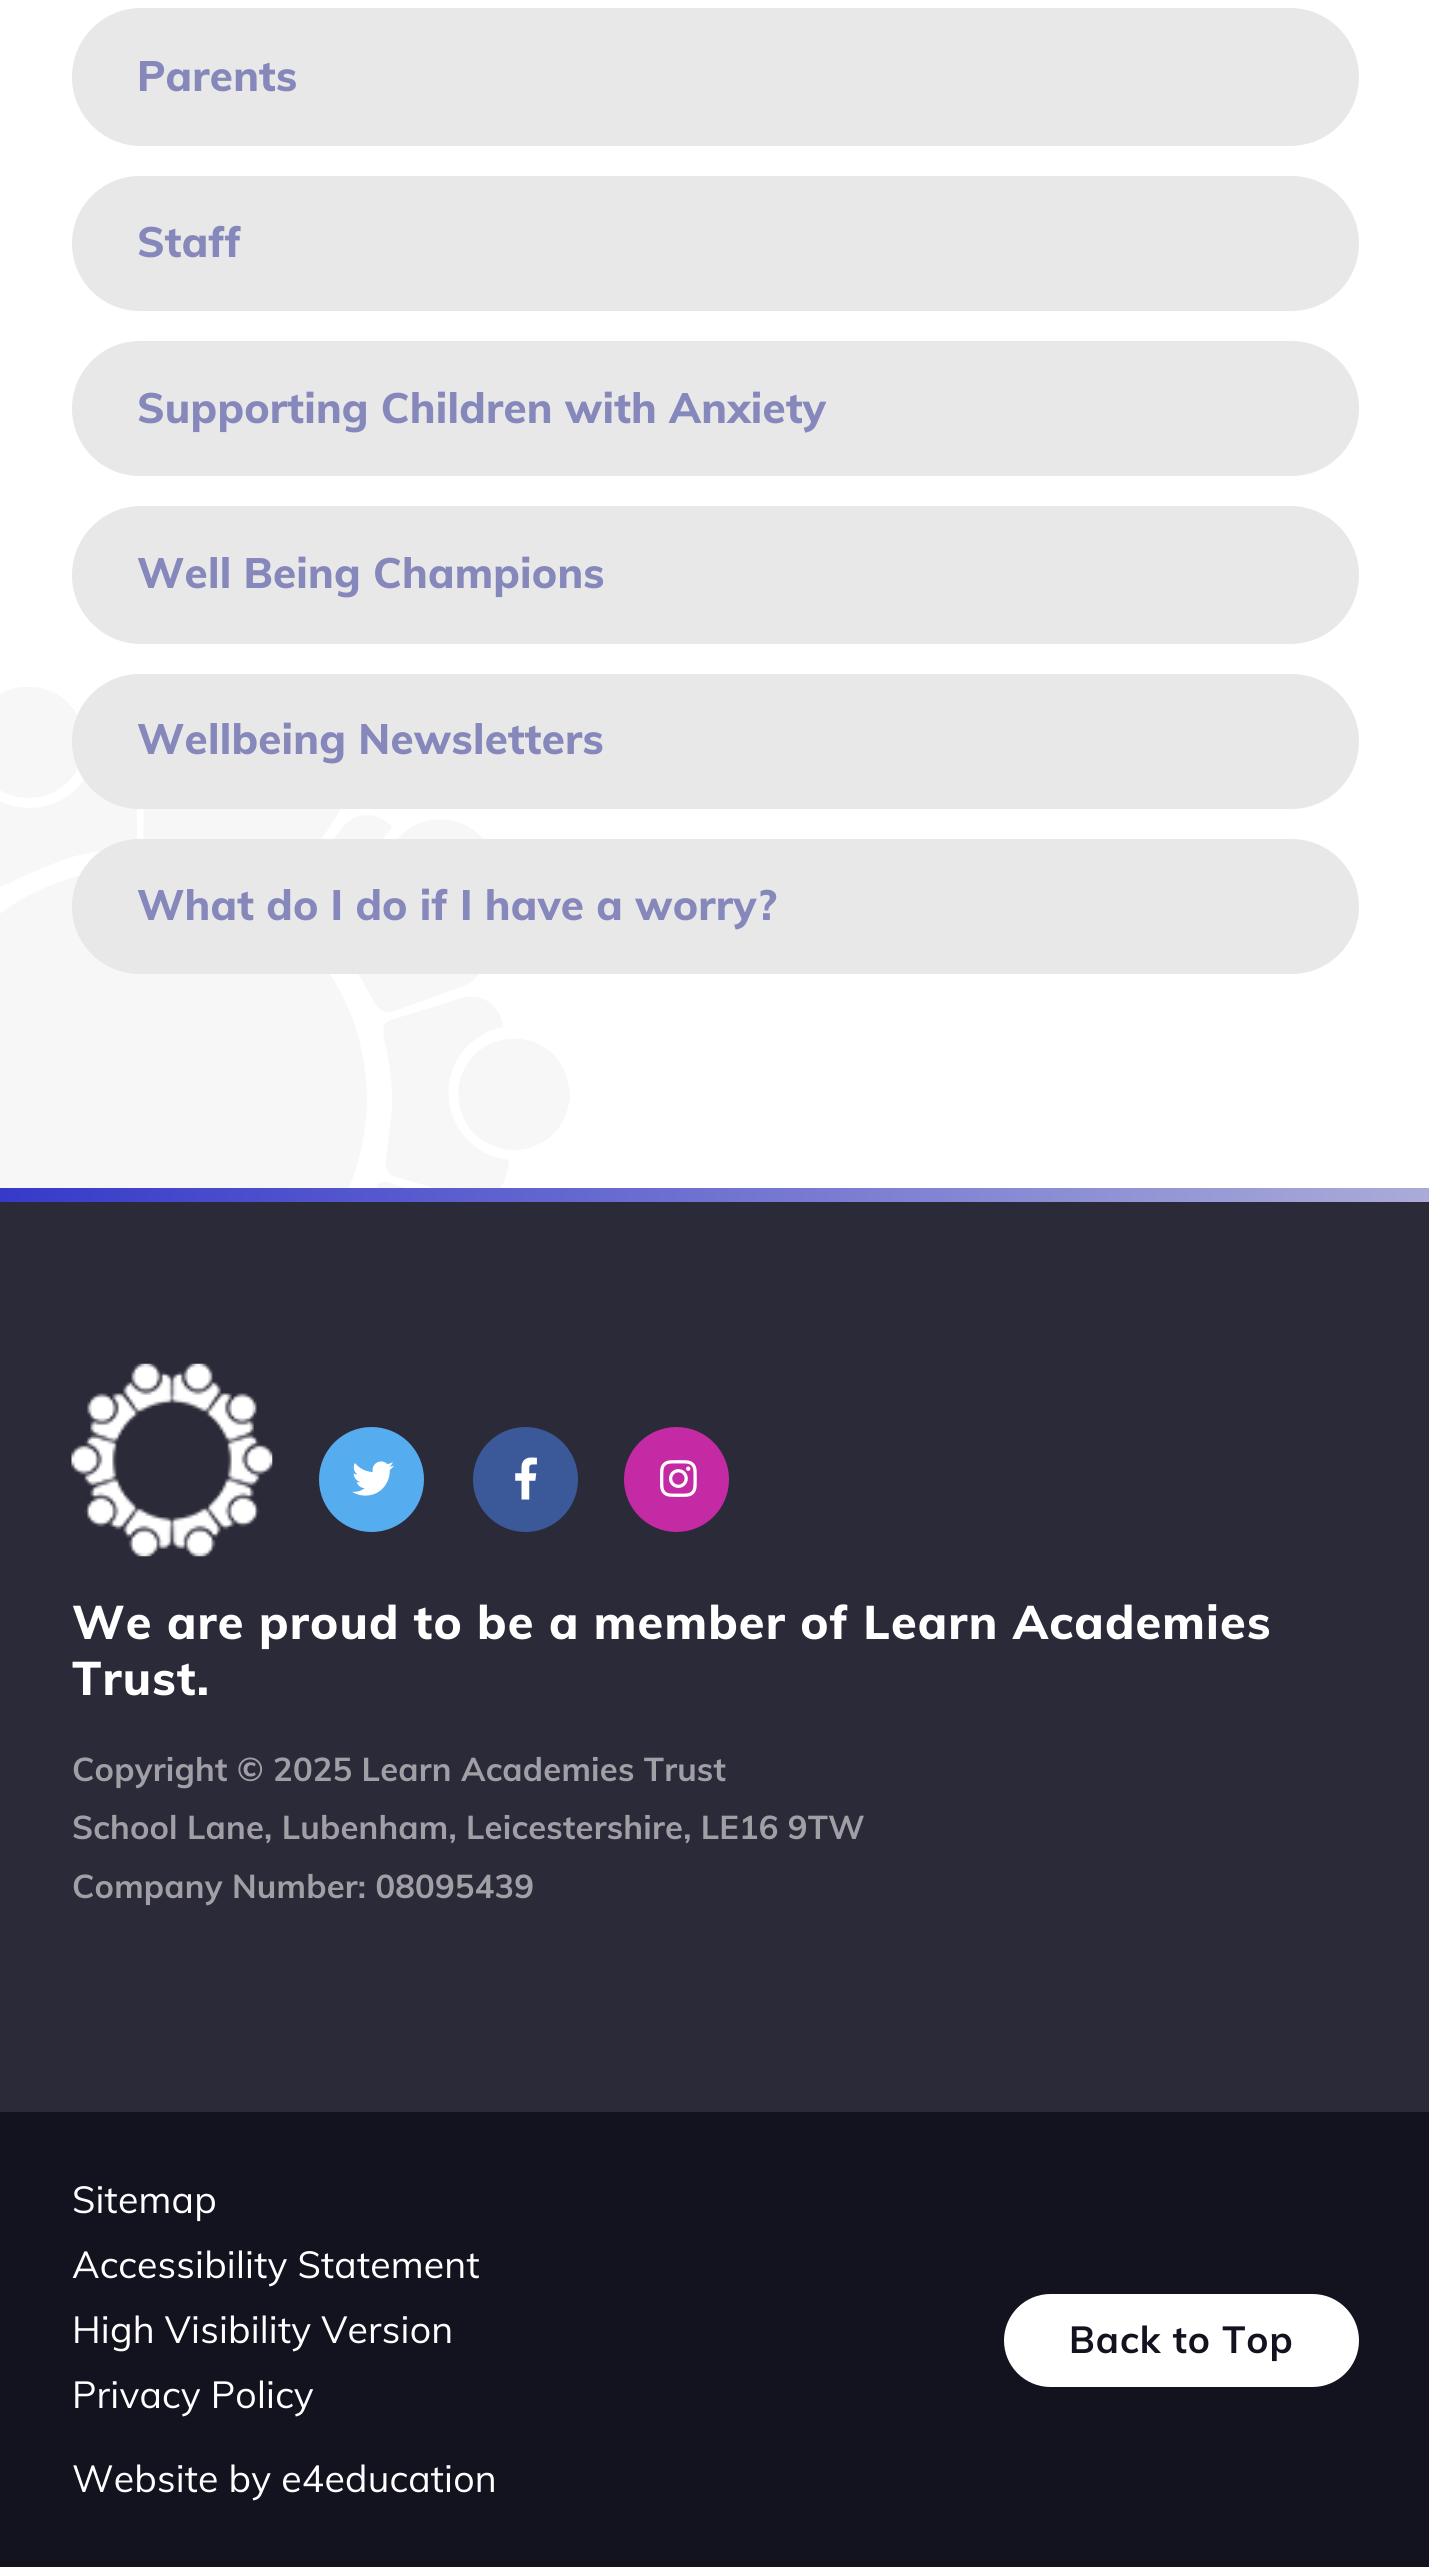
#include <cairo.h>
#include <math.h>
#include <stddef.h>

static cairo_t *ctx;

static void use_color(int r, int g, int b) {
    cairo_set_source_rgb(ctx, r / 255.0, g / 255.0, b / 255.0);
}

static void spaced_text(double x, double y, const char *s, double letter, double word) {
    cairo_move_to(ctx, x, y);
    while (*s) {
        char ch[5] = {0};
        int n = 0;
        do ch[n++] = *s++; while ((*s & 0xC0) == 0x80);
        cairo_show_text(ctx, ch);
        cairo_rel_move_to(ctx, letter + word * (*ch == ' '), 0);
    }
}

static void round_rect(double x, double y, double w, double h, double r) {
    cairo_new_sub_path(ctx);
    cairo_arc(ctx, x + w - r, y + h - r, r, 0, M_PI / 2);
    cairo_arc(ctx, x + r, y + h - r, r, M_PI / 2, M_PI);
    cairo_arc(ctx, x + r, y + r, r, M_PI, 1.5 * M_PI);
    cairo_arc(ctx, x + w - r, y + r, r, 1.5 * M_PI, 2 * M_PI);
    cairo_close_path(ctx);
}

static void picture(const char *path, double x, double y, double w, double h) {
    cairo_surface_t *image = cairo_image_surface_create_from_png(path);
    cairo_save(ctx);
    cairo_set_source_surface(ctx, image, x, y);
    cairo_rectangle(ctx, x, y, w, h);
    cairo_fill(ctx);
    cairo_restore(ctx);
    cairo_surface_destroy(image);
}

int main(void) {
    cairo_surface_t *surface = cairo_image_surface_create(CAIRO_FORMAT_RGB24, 1429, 2567);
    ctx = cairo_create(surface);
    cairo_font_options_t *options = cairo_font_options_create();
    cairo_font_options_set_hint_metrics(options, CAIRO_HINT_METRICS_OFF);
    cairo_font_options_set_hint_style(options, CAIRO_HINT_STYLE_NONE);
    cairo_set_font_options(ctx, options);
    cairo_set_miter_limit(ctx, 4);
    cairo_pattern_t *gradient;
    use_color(255, 255, 255);
    cairo_paint(ctx);
    use_color(232, 232, 232);
    round_rect(72, 8, 1287, 138, 69);
    cairo_fill(ctx);
    cairo_select_font_face(ctx, "Muli ExtraBold", CAIRO_FONT_SLANT_NORMAL, CAIRO_FONT_WEIGHT_NORMAL);
    cairo_set_font_size(ctx, 42.1);
    use_color(134, 135, 187);
    spaced_text(137, 91, "Parents", 0.2, 0);
    use_color(232, 232, 232);
    round_rect(72, 176, 1287, 135, 67.5);
    cairo_fill(ctx);
    use_color(134, 135, 187);
    spaced_text(137, 257, "Staff", 0.2, 0);
    use_color(232, 232, 232);
    round_rect(72, 341, 1287, 135, 67.5);
    cairo_fill(ctx);
    use_color(134, 135, 187);
    spaced_text(137, 423, "Supporting Children with Anxiety", 0.2, 0);
    use_color(232, 232, 232);
    round_rect(72, 506, 1287, 138, 69);
    cairo_fill(ctx);
    use_color(134, 135, 187);
    spaced_text(137, 588, "Well Being Champions", 0.2, 0);
    picture("img1.png", 0, 687, 570, 501);
    use_color(232, 232, 232);
    round_rect(72, 674, 1287, 135, 67.5);
    cairo_fill(ctx);
    use_color(134, 135, 187);
    spaced_text(137, 754, "Wellbeing Newsletters", 0.2, 0);
    use_color(232, 232, 232);
    round_rect(72, 839, 1287, 135, 67.5);
    cairo_fill(ctx);
    use_color(134, 135, 187);
    spaced_text(137, 920, "What do I do if I have a worry?", 0.2, 0);
    use_color(43, 42, 56);
    cairo_rectangle(ctx, 0, 1202, 1429, 910);
    cairo_fill(ctx);
    gradient = cairo_pattern_create_linear(0, 1195, 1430, 1195);
    cairo_pattern_add_color_stop_rgba(gradient, 0, 0.212, 0.227, 0.788, 1);
    cairo_pattern_add_color_stop_rgba(gradient, 1, 0.667, 0.671, 0.847, 1);
    cairo_set_source(ctx, gradient);
    cairo_pattern_destroy(gradient);
    cairo_rectangle(ctx, 0, 1188, 1429, 14);
    cairo_fill(ctx);
    picture("img2.png", 71, 1363, 202, 194);
    use_color(85, 172, 238);
    cairo_arc(ctx, 371.5, 1479.5, 52.5, 0, 2 * M_PI);
    cairo_fill(ctx);
    picture("img3.png", 352, 1461, 42, 35);
    use_color(59, 89, 152);
    cairo_arc(ctx, 525.5, 1479.5, 52.5, 0, 2 * M_PI);
    cairo_fill(ctx);
    picture("img4.png", 515, 1457, 22, 43);
    use_color(195, 42, 163);
    cairo_arc(ctx, 676.5, 1479.5, 52.5, 0, 2 * M_PI);
    cairo_fill(ctx);
    picture("img5.png", 660, 1460, 37, 37);
    cairo_set_font_size(ctx, 46.75);
    use_color(255, 255, 255);
    spaced_text(72, 1639, "We are proud to be a member of Learn Academies", 1.15, 0);
    spaced_text(72, 1695, "Trust.", 1.15, 0);
    cairo_select_font_face(ctx, "Muli", CAIRO_FONT_SLANT_NORMAL, CAIRO_FONT_WEIGHT_BOLD);
    cairo_set_font_size(ctx, 32.75);
    use_color(160, 159, 165);
    spaced_text(72, 1781, "Copyright © 2025 Learn Academies Trust", 0.2, 0);
    spaced_text(72, 1839, "School Lane, Lubenham, Leicestershire, LE16 9TW", 0.2, 0);
    spaced_text(72, 1898, "Company Number: 08095439", 0.2, 0);
    use_color(19, 18, 31);
    cairo_rectangle(ctx, 0, 2112, 1429, 455);
    cairo_fill(ctx);
    cairo_select_font_face(ctx, "Muli", CAIRO_FONT_SLANT_NORMAL, CAIRO_FONT_WEIGHT_NORMAL);
    cairo_set_font_size(ctx, 37.4);
    use_color(255, 255, 255);
    spaced_text(72, 2213, "Sitemap", 0.2, 0);
    spaced_text(72, 2278, "Accessibility Statement", 0.2, 0);
    spaced_text(72, 2343, "High Visibility Version", 0.2, 0);
    spaced_text(72, 2408, "Privacy Policy", 0.2, 0);
    spaced_text(72, 2492, "Website by e4education", 0.2, 0);
    round_rect(1004, 2294, 355, 93, 46.5);
    cairo_fill(ctx);
    cairo_select_font_face(ctx, "Muli", CAIRO_FONT_SLANT_NORMAL, CAIRO_FONT_WEIGHT_BOLD);
    use_color(19, 18, 31);
    spaced_text(1069, 2353, "Back to Top", 1, 0);
    cairo_surface_write_to_png(surface, "result.png");
    cairo_font_options_destroy(options);
    cairo_destroy(ctx);
    cairo_surface_destroy(surface);
    return 0;
}
